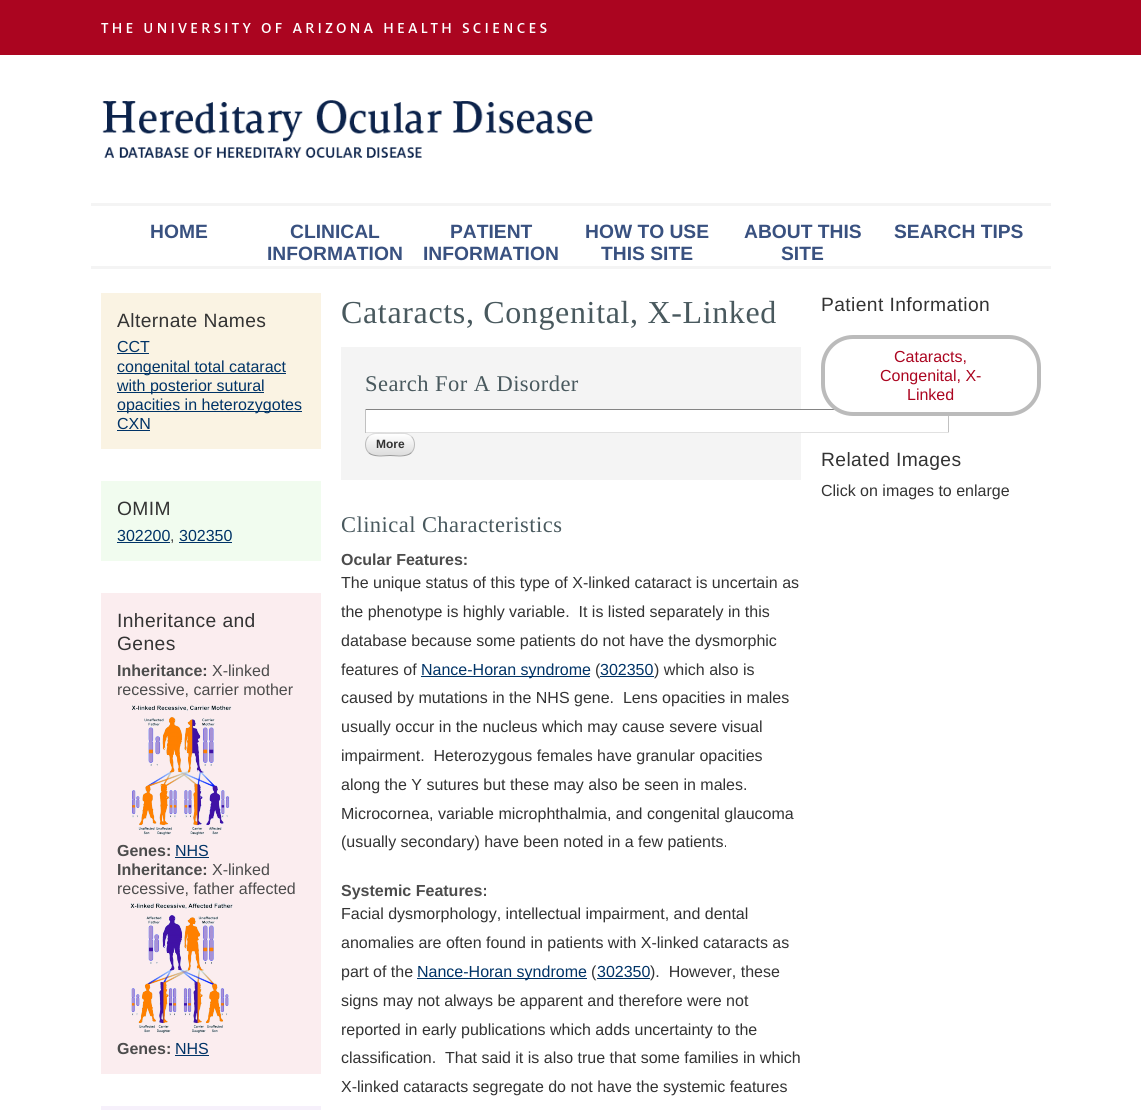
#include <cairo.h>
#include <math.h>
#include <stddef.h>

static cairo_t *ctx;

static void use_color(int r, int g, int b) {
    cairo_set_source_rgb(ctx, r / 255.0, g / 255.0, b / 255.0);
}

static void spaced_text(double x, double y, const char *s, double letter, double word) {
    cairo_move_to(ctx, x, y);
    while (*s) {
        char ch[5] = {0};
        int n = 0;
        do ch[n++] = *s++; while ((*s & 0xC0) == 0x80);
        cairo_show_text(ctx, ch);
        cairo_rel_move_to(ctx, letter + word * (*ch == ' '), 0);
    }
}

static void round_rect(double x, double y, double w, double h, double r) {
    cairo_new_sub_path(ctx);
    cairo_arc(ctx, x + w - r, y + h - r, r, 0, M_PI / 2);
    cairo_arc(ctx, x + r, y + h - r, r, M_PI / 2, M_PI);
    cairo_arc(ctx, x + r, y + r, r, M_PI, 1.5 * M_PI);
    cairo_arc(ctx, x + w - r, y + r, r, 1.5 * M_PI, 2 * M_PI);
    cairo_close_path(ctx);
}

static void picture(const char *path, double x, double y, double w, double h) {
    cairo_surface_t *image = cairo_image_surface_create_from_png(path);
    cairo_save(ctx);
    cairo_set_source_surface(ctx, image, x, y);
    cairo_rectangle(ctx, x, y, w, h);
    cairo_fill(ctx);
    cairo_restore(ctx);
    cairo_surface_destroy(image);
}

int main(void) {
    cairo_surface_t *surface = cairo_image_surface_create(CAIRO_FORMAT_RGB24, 1141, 1110);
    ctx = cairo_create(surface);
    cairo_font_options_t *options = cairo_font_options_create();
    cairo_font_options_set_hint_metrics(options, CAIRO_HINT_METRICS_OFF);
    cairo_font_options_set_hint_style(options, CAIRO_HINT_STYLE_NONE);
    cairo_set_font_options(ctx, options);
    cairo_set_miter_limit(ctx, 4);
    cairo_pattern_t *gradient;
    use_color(255, 255, 255);
    cairo_paint(ctx);
    use_color(171, 5, 32);
    cairo_rectangle(ctx, 0, 0, 1141, 55);
    cairo_fill(ctx);
    picture("img1.png", 101, 23, 446, 10);
    picture("img2.png", 102, 100, 491, 58);
    use_color(244, 244, 244);
    cairo_rectangle(ctx, 91, 203, 960, 3);
    cairo_fill(ctx);
    cairo_rectangle(ctx, 91, 266, 960, 3);
    cairo_fill(ctx);
    cairo_select_font_face(ctx, "Liberation Sans", CAIRO_FONT_SLANT_NORMAL, CAIRO_FONT_WEIGHT_BOLD);
    cairo_set_font_size(ctx, 19.25);
    use_color(57, 81, 128);
    cairo_move_to(ctx, 150, 238);
    cairo_show_text(ctx, "HOME");
    cairo_move_to(ctx, 290, 238);
    cairo_show_text(ctx, "CLINICAL");
    cairo_move_to(ctx, 267, 260);
    cairo_show_text(ctx, "INFORMATION");
    cairo_move_to(ctx, 450, 238);
    cairo_show_text(ctx, "PATIENT");
    cairo_move_to(ctx, 423, 260);
    cairo_show_text(ctx, "INFORMATION");
    cairo_move_to(ctx, 585, 238);
    cairo_show_text(ctx, "HOW TO USE");
    cairo_move_to(ctx, 601, 260);
    cairo_show_text(ctx, "THIS SITE");
    cairo_move_to(ctx, 744, 238);
    cairo_show_text(ctx, "ABOUT THIS");
    cairo_move_to(ctx, 781, 260);
    cairo_show_text(ctx, "SITE");
    cairo_move_to(ctx, 894, 238);
    cairo_show_text(ctx, "SEARCH TIPS");
    use_color(250, 243, 227);
    cairo_rectangle(ctx, 101, 293, 220, 156);
    cairo_fill(ctx);
    cairo_select_font_face(ctx, "Liberation Sans", CAIRO_FONT_SLANT_NORMAL, CAIRO_FONT_WEIGHT_NORMAL);
    use_color(51, 51, 51);
    spaced_text(117, 327, "Alternate Names", 0.4, 0);
    cairo_set_font_size(ctx, 16);
    use_color(0, 51, 102);
    cairo_move_to(ctx, 117, 352);
    cairo_show_text(ctx, "CCT");
    cairo_rectangle(ctx, 117, 353, 32, 1);
    cairo_fill(ctx);
    cairo_rectangle(ctx, 117, 373, 169, 1);
    cairo_fill(ctx);
    cairo_move_to(ctx, 117, 372);
    cairo_show_text(ctx, "congenital total cataract");
    cairo_rectangle(ctx, 117, 392, 147, 1);
    cairo_fill(ctx);
    cairo_move_to(ctx, 117, 391);
    cairo_show_text(ctx, "with posterior sutural");
    cairo_rectangle(ctx, 117, 411, 185, 1);
    cairo_fill(ctx);
    cairo_move_to(ctx, 117, 410);
    cairo_show_text(ctx, "opacities in heterozygotes");
    cairo_move_to(ctx, 117, 429);
    cairo_show_text(ctx, "CXN");
    cairo_rectangle(ctx, 117, 430, 33, 1);
    cairo_fill(ctx);
    use_color(241, 252, 239);
    cairo_rectangle(ctx, 101, 481, 220, 80);
    cairo_fill(ctx);
    cairo_set_font_size(ctx, 19.25);
    use_color(51, 51, 51);
    spaced_text(117, 515, "OMIM", 0.4, 0);
    cairo_set_font_size(ctx, 16);
    use_color(0, 51, 102);
    cairo_move_to(ctx, 117, 541);
    cairo_show_text(ctx, "302200");
    cairo_rectangle(ctx, 117, 542, 53, 1);
    cairo_fill(ctx);
    use_color(76, 76, 76);
    cairo_move_to(ctx, 170, 541);
    cairo_show_text(ctx, ",");
    use_color(0, 51, 102);
    cairo_move_to(ctx, 179, 541);
    cairo_show_text(ctx, "302350");
    cairo_rectangle(ctx, 179, 542, 53, 1);
    cairo_fill(ctx);
    use_color(251, 237, 239);
    cairo_rectangle(ctx, 101, 593, 220, 481);
    cairo_fill(ctx);
    cairo_set_font_size(ctx, 19.25);
    use_color(51, 51, 51);
    spaced_text(117, 627, "Inheritance and", 0.4, 0);
    spaced_text(117, 650, "Genes", 0.4, 0);
    cairo_select_font_face(ctx, "Liberation Sans", CAIRO_FONT_SLANT_NORMAL, CAIRO_FONT_WEIGHT_BOLD);
    cairo_set_font_size(ctx, 16);
    use_color(76, 76, 76);
    cairo_move_to(ctx, 117, 676);
    cairo_show_text(ctx, "Inheritance:");
    cairo_select_font_face(ctx, "Liberation Sans", CAIRO_FONT_SLANT_NORMAL, CAIRO_FONT_WEIGHT_NORMAL);
    cairo_move_to(ctx, 212, 676);
    cairo_show_text(ctx, "X-linked");
    cairo_move_to(ctx, 117, 695);
    cairo_show_text(ctx, "recessive, carrier mother");
    picture("img3.png", 131, 705, 101, 130);
    cairo_select_font_face(ctx, "Liberation Sans", CAIRO_FONT_SLANT_NORMAL, CAIRO_FONT_WEIGHT_BOLD);
    cairo_move_to(ctx, 117, 856);
    cairo_show_text(ctx, "Genes:");
    cairo_select_font_face(ctx, "Liberation Sans", CAIRO_FONT_SLANT_NORMAL, CAIRO_FONT_WEIGHT_NORMAL);
    use_color(0, 51, 102);
    cairo_move_to(ctx, 175, 856);
    cairo_show_text(ctx, "NHS");
    cairo_rectangle(ctx, 175, 857, 34, 1);
    cairo_fill(ctx);
    cairo_select_font_face(ctx, "Liberation Sans", CAIRO_FONT_SLANT_NORMAL, CAIRO_FONT_WEIGHT_BOLD);
    use_color(76, 76, 76);
    cairo_move_to(ctx, 117, 875);
    cairo_show_text(ctx, "Inheritance:");
    cairo_select_font_face(ctx, "Liberation Sans", CAIRO_FONT_SLANT_NORMAL, CAIRO_FONT_WEIGHT_NORMAL);
    cairo_move_to(ctx, 212, 875);
    cairo_show_text(ctx, "X-linked");
    cairo_move_to(ctx, 117, 894);
    cairo_show_text(ctx, "recessive, father affected");
    picture("img4.png", 130, 903, 103, 130);
    cairo_select_font_face(ctx, "Liberation Sans", CAIRO_FONT_SLANT_NORMAL, CAIRO_FONT_WEIGHT_BOLD);
    cairo_move_to(ctx, 117, 1054);
    cairo_show_text(ctx, "Genes:");
    cairo_select_font_face(ctx, "Liberation Sans", CAIRO_FONT_SLANT_NORMAL, CAIRO_FONT_WEIGHT_NORMAL);
    use_color(0, 51, 102);
    cairo_move_to(ctx, 175, 1054);
    cairo_show_text(ctx, "NHS");
    cairo_rectangle(ctx, 175, 1055, 34, 1);
    cairo_fill(ctx);
    use_color(246, 240, 251);
    cairo_rectangle(ctx, 101, 1106, 220, 4);
    cairo_fill(ctx);
    cairo_select_font_face(ctx, "Liberation Serif", CAIRO_FONT_SLANT_NORMAL, CAIRO_FONT_WEIGHT_NORMAL);
    cairo_set_font_size(ctx, 32);
    use_color(73, 89, 94);
    spaced_text(341, 323, "Cataracts, Congenital, X-Linked", 0.65, 0);
    use_color(244, 244, 244);
    cairo_rectangle(ctx, 341, 347, 460, 133);
    cairo_fill(ctx);
    cairo_set_font_size(ctx, 22.5);
    use_color(73, 89, 94);
    spaced_text(365, 391, "Search For A Disorder", 0.45, 0);
    use_color(255, 255, 255);
    cairo_rectangle(ctx, 366, 410, 435, 22);
    cairo_fill(ctx);
    use_color(132, 132, 132);
    cairo_rectangle(ctx, 365, 409, 470, 1);
    cairo_fill(ctx);
    use_color(193, 193, 193);
    cairo_rectangle(ctx, 948, 409, 1, 24);
    cairo_fill(ctx);
    use_color(225, 225, 225);
    cairo_rectangle(ctx, 365, 432, 584, 1);
    cairo_fill(ctx);
    use_color(193, 193, 193);
    cairo_rectangle(ctx, 365, 409, 1, 24);
    cairo_fill(ctx);
    cairo_save(ctx);
    round_rect(365, 433, 50, 23, 11);
    cairo_clip(ctx);
    gradient = cairo_pattern_create_linear(366, 413, 366, 434);
    cairo_pattern_add_color_stop_rgba(gradient, 0, 1, 1, 1, 1);
    cairo_pattern_add_color_stop_rgba(gradient, 1, 0.867, 0.867, 0.867, 1);
    cairo_set_source(ctx, gradient);
    cairo_pattern_destroy(gradient);
    cairo_rectangle(ctx, 365, 433, 50, 1);
    cairo_fill(ctx);
    gradient = cairo_pattern_create_linear(366, 434, 366, 455);
    cairo_pattern_add_color_stop_rgba(gradient, 0, 1, 1, 1, 1);
    cairo_pattern_add_color_stop_rgba(gradient, 1, 0.867, 0.867, 0.867, 1);
    cairo_set_source(ctx, gradient);
    cairo_pattern_destroy(gradient);
    cairo_rectangle(ctx, 365, 434, 50, 21);
    cairo_fill(ctx);
    gradient = cairo_pattern_create_linear(366, 455, 366, 476);
    cairo_pattern_add_color_stop_rgba(gradient, 0, 1, 1, 1, 1);
    cairo_pattern_add_color_stop_rgba(gradient, 1, 0.867, 0.867, 0.867, 1);
    cairo_set_source(ctx, gradient);
    cairo_pattern_destroy(gradient);
    cairo_rectangle(ctx, 365, 455, 50, 1);
    cairo_fill(ctx);
    cairo_restore(ctx);
    cairo_new_path(ctx);
    cairo_move_to(ctx, 368.5, 436.5);
    cairo_curve_to(ctx, 373.5, 431.5, 384, 433.5, 390, 433.5);
    cairo_curve_to(ctx, 396, 433.5, 406.5, 431.5, 411.5, 436.5);
    use_color(221, 221, 221);
    cairo_set_line_width(ctx, 1);
    cairo_stroke(ctx);
    cairo_new_path(ctx);
    cairo_move_to(ctx, 411.5, 436.5);
    cairo_curve_to(ctx, 415.5, 440.5, 415.5, 448.5, 411.5, 452.5);
    use_color(187, 187, 187);
    cairo_stroke(ctx);
    cairo_new_path(ctx);
    cairo_move_to(ctx, 411.5, 452.5);
    cairo_curve_to(ctx, 406.5, 457.5, 396, 455.5, 390, 455.5);
    cairo_curve_to(ctx, 384, 455.5, 373.5, 457.5, 368.5, 452.5);
    use_color(153, 153, 153);
    cairo_stroke(ctx);
    cairo_new_path(ctx);
    cairo_move_to(ctx, 368.5, 452.5);
    cairo_curve_to(ctx, 364.5, 448.5, 364.5, 440.5, 368.5, 436.5);
    use_color(187, 187, 187);
    cairo_stroke(ctx);
    cairo_select_font_face(ctx, "Liberation Sans", CAIRO_FONT_SLANT_NORMAL, CAIRO_FONT_WEIGHT_BOLD);
    cairo_set_font_size(ctx, 12);
    use_color(51, 51, 51);
    cairo_move_to(ctx, 376, 448);
    cairo_show_text(ctx, "More");
    cairo_select_font_face(ctx, "Liberation Serif", CAIRO_FONT_SLANT_NORMAL, CAIRO_FONT_WEIGHT_NORMAL);
    cairo_set_font_size(ctx, 22.5);
    use_color(73, 89, 94);
    spaced_text(341, 532, "Clinical Characteristics", 0.45, 0);
    cairo_select_font_face(ctx, "Liberation Sans", CAIRO_FONT_SLANT_NORMAL, CAIRO_FONT_WEIGHT_BOLD);
    cairo_set_font_size(ctx, 16);
    use_color(76, 76, 76);
    cairo_move_to(ctx, 341, 565);
    cairo_show_text(ctx, "Ocular Features:");
    cairo_select_font_face(ctx, "Liberation Sans", CAIRO_FONT_SLANT_NORMAL, CAIRO_FONT_WEIGHT_NORMAL);
    use_color(51, 51, 51);
    cairo_move_to(ctx, 341, 588);
    cairo_show_text(ctx, "The unique status of this type of X-linked cataract is uncertain as");
    cairo_move_to(ctx, 341, 617);
    cairo_show_text(ctx, "the phenotype is highly variable.  It is listed separately in this");
    cairo_move_to(ctx, 341, 646);
    cairo_show_text(ctx, "database because some patients do not have the dysmorphic");
    cairo_move_to(ctx, 341, 675);
    cairo_show_text(ctx, "features of");
    use_color(0, 51, 102);
    cairo_rectangle(ctx, 421, 676, 169, 1);
    cairo_fill(ctx);
    cairo_move_to(ctx, 421, 675);
    cairo_show_text(ctx, "Nance-Horan syndrome");
    use_color(51, 51, 51);
    cairo_move_to(ctx, 595, 675);
    cairo_show_text(ctx, "(");
    use_color(0, 51, 102);
    cairo_move_to(ctx, 600, 675);
    cairo_show_text(ctx, "302350");
    cairo_rectangle(ctx, 600, 676, 54, 1);
    cairo_fill(ctx);
    use_color(51, 51, 51);
    cairo_move_to(ctx, 654, 675);
    cairo_show_text(ctx, ") which also is");
    cairo_move_to(ctx, 341, 703);
    cairo_show_text(ctx, "caused by mutations in the NHS gene.  Lens opacities in males");
    cairo_move_to(ctx, 341, 732);
    cairo_show_text(ctx, "usually occur in the nucleus which may cause severe visual");
    cairo_move_to(ctx, 341, 761);
    cairo_show_text(ctx, "impairment.  Heterozygous females have granular opacities");
    cairo_move_to(ctx, 341, 790);
    cairo_show_text(ctx, "along the Y sutures but these may also be seen in males.");
    cairo_move_to(ctx, 341, 819);
    cairo_show_text(ctx, "Microcornea, variable microphthalmia, and congenital glaucoma");
    cairo_move_to(ctx, 341, 847);
    cairo_show_text(ctx, "(usually secondary) have been noted in a few patients.");
    cairo_select_font_face(ctx, "Liberation Sans", CAIRO_FONT_SLANT_NORMAL, CAIRO_FONT_WEIGHT_BOLD);
    use_color(76, 76, 76);
    cairo_move_to(ctx, 341, 896);
    cairo_show_text(ctx, "Systemic Features:");
    cairo_select_font_face(ctx, "Liberation Sans", CAIRO_FONT_SLANT_NORMAL, CAIRO_FONT_WEIGHT_NORMAL);
    use_color(51, 51, 51);
    cairo_move_to(ctx, 341, 919);
    cairo_show_text(ctx, "Facial dysmorphology, intellectual impairment, and dental");
    cairo_move_to(ctx, 341, 948);
    cairo_show_text(ctx, "anomalies are often found in patients with X-linked cataracts as");
    cairo_move_to(ctx, 341, 977);
    cairo_show_text(ctx, "part of the");
    use_color(0, 51, 102);
    cairo_rectangle(ctx, 417, 978, 170, 1);
    cairo_fill(ctx);
    cairo_move_to(ctx, 417, 977);
    cairo_show_text(ctx, "Nance-Horan syndrome");
    use_color(51, 51, 51);
    cairo_move_to(ctx, 591, 977);
    cairo_show_text(ctx, "(");
    use_color(0, 51, 102);
    cairo_move_to(ctx, 597, 977);
    cairo_show_text(ctx, "302350");
    cairo_rectangle(ctx, 597, 978, 53, 1);
    cairo_fill(ctx);
    use_color(51, 51, 51);
    cairo_move_to(ctx, 650, 977);
    cairo_show_text(ctx, ").  However, these");
    cairo_move_to(ctx, 341, 1006);
    cairo_show_text(ctx, "signs may not always be apparent and therefore were not");
    cairo_move_to(ctx, 341, 1035);
    cairo_show_text(ctx, "reported in early publications which adds uncertainty to the");
    cairo_move_to(ctx, 341, 1063);
    cairo_show_text(ctx, "classification.  That said it is also true that some families in which");
    cairo_move_to(ctx, 341, 1092);
    cairo_show_text(ctx, "X-linked cataracts segregate do not have the systemic features");
    cairo_set_font_size(ctx, 19.25);
    spaced_text(821, 311, "Patient Information", 0.4, 0);
    use_color(255, 255, 255);
    round_rect(823, 337, 216, 77, 30);
    cairo_fill_preserve(ctx);
    use_color(187, 187, 187);
    cairo_set_line_width(ctx, 4);
    cairo_stroke(ctx);
    cairo_set_font_size(ctx, 16);
    use_color(171, 5, 32);
    cairo_move_to(ctx, 894, 362);
    cairo_show_text(ctx, "Cataracts,");
    cairo_move_to(ctx, 880, 381);
    cairo_show_text(ctx, "Congenital, X-");
    cairo_move_to(ctx, 907, 400);
    cairo_show_text(ctx, "Linked");
    cairo_set_font_size(ctx, 19.25);
    use_color(51, 51, 51);
    spaced_text(821, 466, "Related Images", 0.4, 0);
    cairo_set_font_size(ctx, 16);
    cairo_move_to(ctx, 821, 496);
    cairo_show_text(ctx, "Click on images to enlarge");
    cairo_surface_write_to_png(surface, "result.png");
    cairo_font_options_destroy(options);
    cairo_destroy(ctx);
    cairo_surface_destroy(surface);
    return 0;
}
